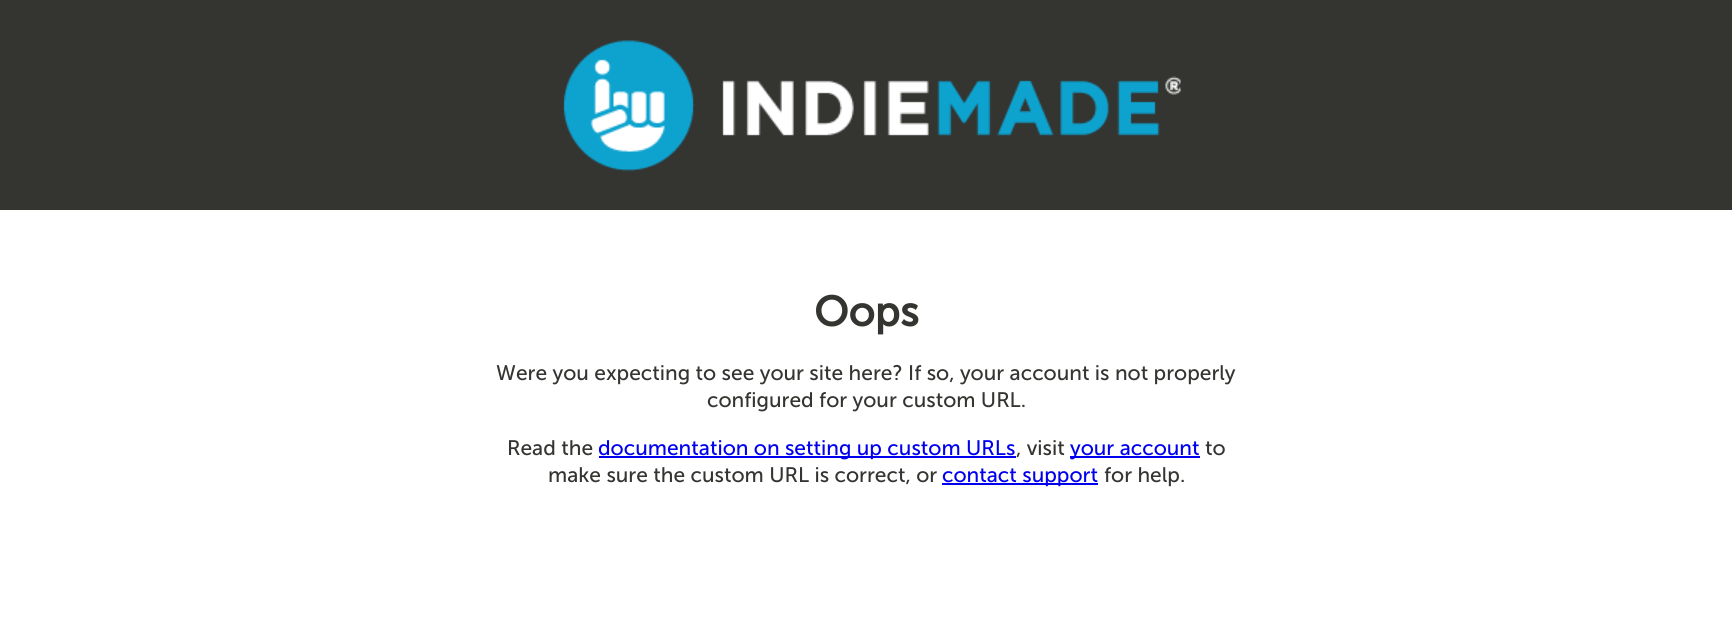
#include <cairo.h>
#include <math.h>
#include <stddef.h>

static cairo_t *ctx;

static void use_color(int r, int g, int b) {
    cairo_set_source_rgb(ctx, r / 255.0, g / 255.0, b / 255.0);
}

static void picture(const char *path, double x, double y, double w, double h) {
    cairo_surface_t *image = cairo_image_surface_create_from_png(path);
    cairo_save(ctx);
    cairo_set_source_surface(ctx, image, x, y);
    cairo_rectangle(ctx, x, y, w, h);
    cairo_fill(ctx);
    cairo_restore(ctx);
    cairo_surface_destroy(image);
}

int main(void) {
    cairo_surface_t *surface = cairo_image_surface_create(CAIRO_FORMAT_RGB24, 1732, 644);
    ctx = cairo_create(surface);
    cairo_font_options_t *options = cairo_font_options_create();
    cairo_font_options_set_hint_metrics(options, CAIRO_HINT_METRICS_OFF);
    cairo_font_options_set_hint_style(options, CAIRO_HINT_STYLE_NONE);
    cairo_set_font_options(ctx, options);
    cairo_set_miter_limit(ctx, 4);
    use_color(52, 52, 49);
    cairo_paint(ctx);
    picture("img1.png", 563, 40, 618, 132);
    use_color(255, 255, 255);
    cairo_rectangle(ctx, 0, 210, 1732, 434);
    cairo_fill(ctx);
    cairo_select_font_face(ctx, "Museo Sans", CAIRO_FONT_SLANT_NORMAL, CAIRO_FONT_WEIGHT_BOLD);
    cairo_set_font_size(ctx, 42);
    use_color(52, 52, 49);
    cairo_move_to(ctx, 814, 326);
    cairo_show_text(ctx, "Oops");
    cairo_select_font_face(ctx, "Museo Sans", CAIRO_FONT_SLANT_NORMAL, CAIRO_FONT_WEIGHT_NORMAL);
    cairo_set_font_size(ctx, 21);
    cairo_move_to(ctx, 496, 380);
    cairo_show_text(ctx, "Were you expecting to see your site here? If so, your account is not properly");
    cairo_move_to(ctx, 707, 407);
    cairo_show_text(ctx, "configured for your custom URL.");
    cairo_move_to(ctx, 507, 455);
    cairo_show_text(ctx, "Read the");
    use_color(0, 0, 238);
    cairo_rectangle(ctx, 599, 456, 417, 2);
    cairo_fill(ctx);
    cairo_move_to(ctx, 598, 455);
    cairo_show_text(ctx, "documentation on setting up custom URLs");
    use_color(52, 52, 49);
    cairo_move_to(ctx, 1016, 455);
    cairo_show_text(ctx, ", visit");
    use_color(0, 0, 238);
    cairo_rectangle(ctx, 1070, 456, 130, 2);
    cairo_fill(ctx);
    cairo_move_to(ctx, 1070, 455);
    cairo_show_text(ctx, "your account");
    use_color(52, 52, 49);
    cairo_move_to(ctx, 1205, 455);
    cairo_show_text(ctx, "to");
    cairo_move_to(ctx, 548, 482);
    cairo_show_text(ctx, "make sure the custom URL is correct, or");
    use_color(0, 0, 238);
    cairo_rectangle(ctx, 942, 483, 156, 2);
    cairo_fill(ctx);
    cairo_move_to(ctx, 942, 482);
    cairo_show_text(ctx, "contact support");
    use_color(52, 52, 49);
    cairo_move_to(ctx, 1104, 482);
    cairo_show_text(ctx, "for help.");
    cairo_surface_write_to_png(surface, "result.png");
    cairo_font_options_destroy(options);
    cairo_destroy(ctx);
    cairo_surface_destroy(surface);
    return 0;
}
